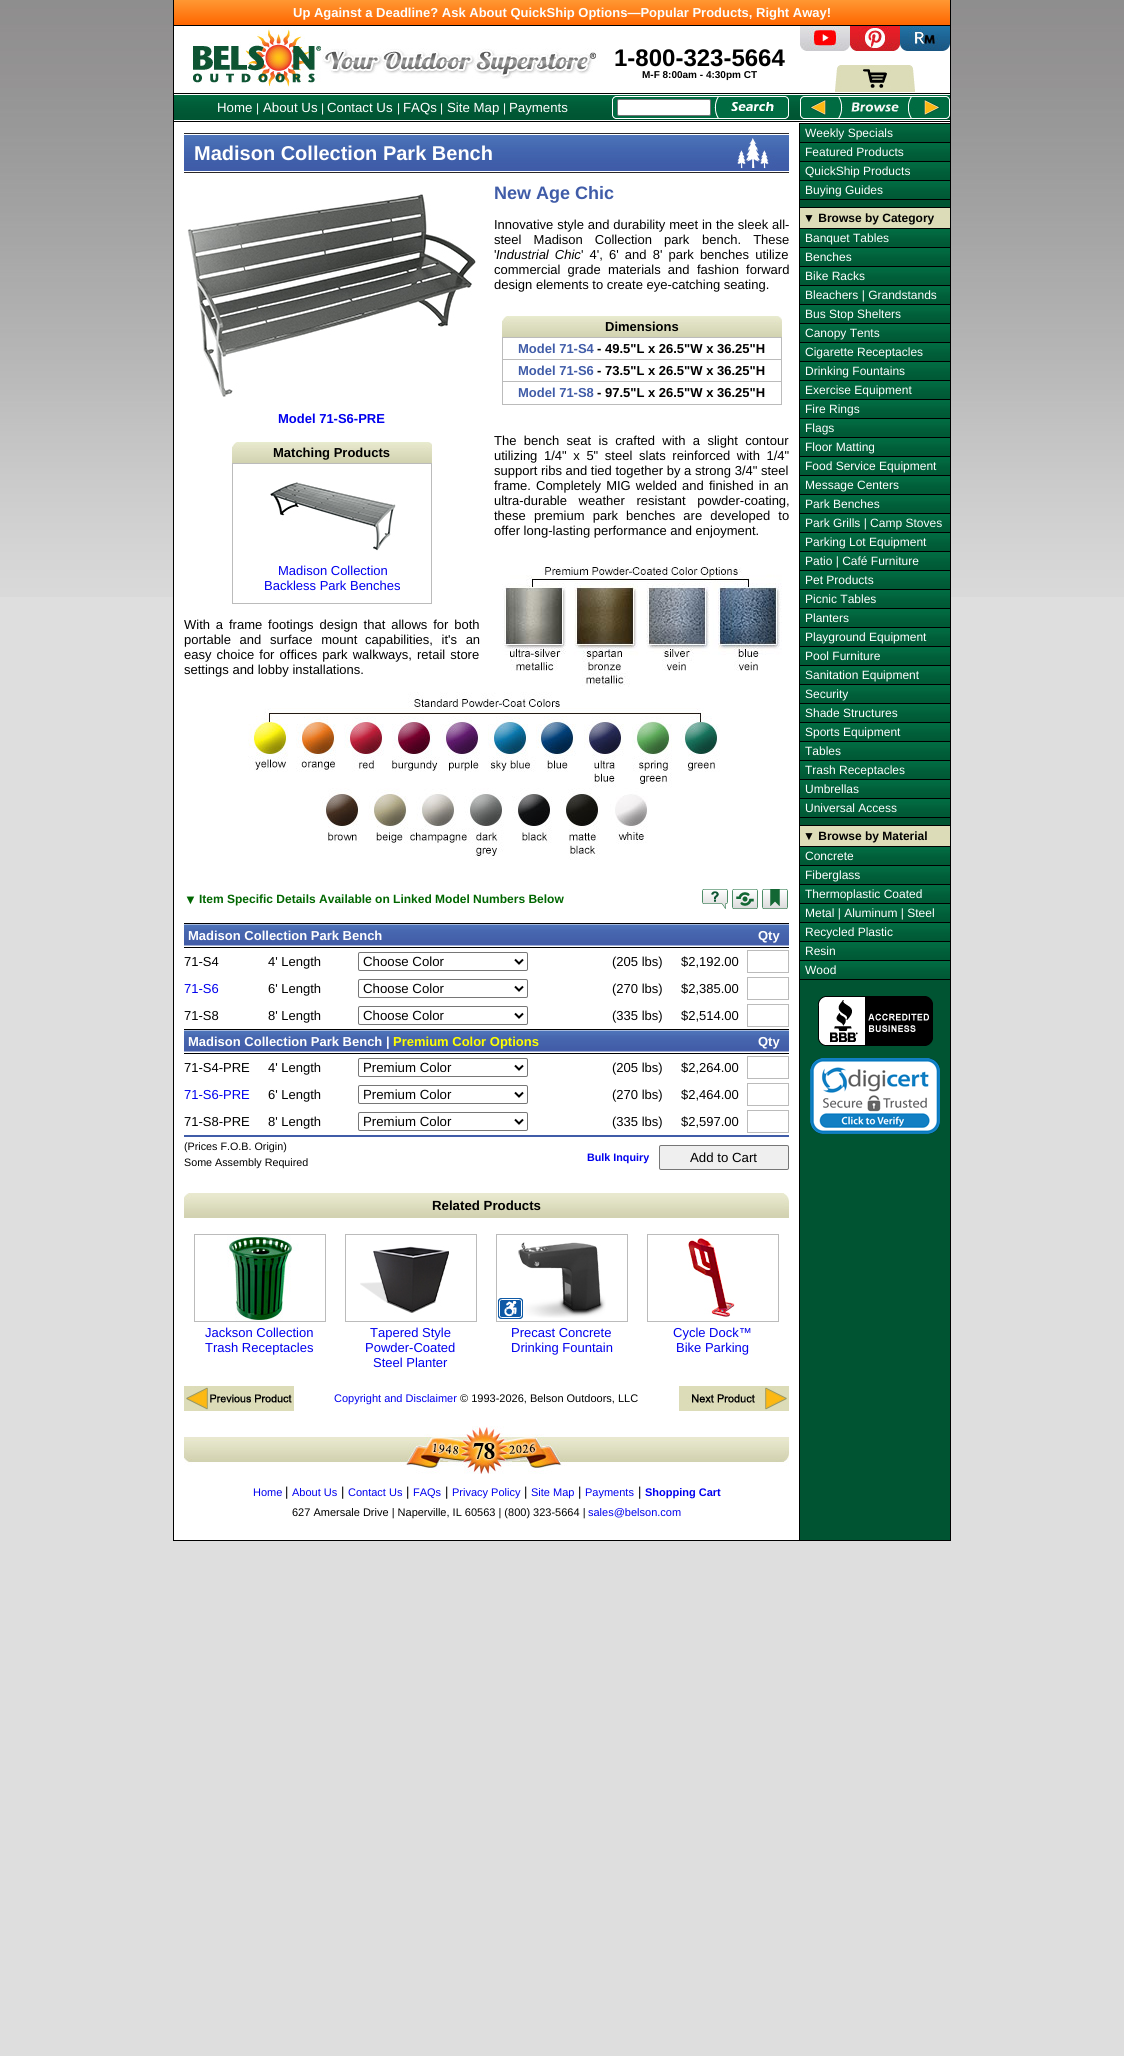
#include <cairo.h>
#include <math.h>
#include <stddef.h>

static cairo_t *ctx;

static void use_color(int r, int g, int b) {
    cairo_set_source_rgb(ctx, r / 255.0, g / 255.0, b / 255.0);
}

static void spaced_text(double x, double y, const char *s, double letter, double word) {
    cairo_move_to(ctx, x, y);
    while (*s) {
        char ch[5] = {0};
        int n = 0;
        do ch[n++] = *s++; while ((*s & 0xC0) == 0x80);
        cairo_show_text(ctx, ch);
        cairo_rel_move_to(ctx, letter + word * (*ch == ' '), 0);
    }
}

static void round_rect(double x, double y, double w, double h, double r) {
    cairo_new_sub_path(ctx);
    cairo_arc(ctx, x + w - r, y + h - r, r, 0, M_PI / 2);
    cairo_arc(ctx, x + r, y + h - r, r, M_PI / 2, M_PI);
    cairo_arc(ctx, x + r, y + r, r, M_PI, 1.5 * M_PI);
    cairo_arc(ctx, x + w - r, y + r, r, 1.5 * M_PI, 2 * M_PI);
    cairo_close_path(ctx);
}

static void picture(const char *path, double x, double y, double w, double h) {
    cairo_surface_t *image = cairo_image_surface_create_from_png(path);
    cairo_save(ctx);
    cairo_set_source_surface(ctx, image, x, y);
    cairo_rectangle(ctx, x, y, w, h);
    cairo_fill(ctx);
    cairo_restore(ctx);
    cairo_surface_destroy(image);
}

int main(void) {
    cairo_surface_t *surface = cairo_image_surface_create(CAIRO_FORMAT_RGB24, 1124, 2056);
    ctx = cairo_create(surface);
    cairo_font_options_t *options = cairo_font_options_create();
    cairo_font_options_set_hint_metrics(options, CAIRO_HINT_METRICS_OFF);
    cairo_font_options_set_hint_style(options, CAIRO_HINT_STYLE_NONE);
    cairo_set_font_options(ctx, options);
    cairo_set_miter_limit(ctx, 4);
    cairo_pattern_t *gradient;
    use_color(222, 222, 222);
    cairo_paint(ctx);
    picture("img1.png", 0, 0, 1124, 597);
    use_color(0, 84, 50);
    cairo_rectangle(ctx, 800, 200, 150, 1340);
    cairo_fill(ctx);
    use_color(0, 0, 0);
    cairo_rectangle(ctx, 950, 0, 1, 1541);
    cairo_fill(ctx);
    cairo_rectangle(ctx, 173, 1540, 778, 1);
    cairo_fill(ctx);
    cairo_rectangle(ctx, 173, 0, 1, 1541);
    cairo_fill(ctx);
    gradient = cairo_pattern_create_linear(562, 0, 562, 25);
    cairo_pattern_add_color_stop_rgba(gradient, 0, 1, 0.596, 0.2, 1);
    cairo_pattern_add_color_stop_rgba(gradient, 1, 1, 0.4, 0, 1);
    cairo_set_source(ctx, gradient);
    cairo_pattern_destroy(gradient);
    cairo_rectangle(ctx, 174, 0, 776, 25);
    cairo_fill(ctx);
    use_color(0, 0, 0);
    cairo_rectangle(ctx, 174, 25, 776, 1);
    cairo_fill(ctx);
    cairo_select_font_face(ctx, "Liberation Sans", CAIRO_FONT_SLANT_NORMAL, CAIRO_FONT_WEIGHT_BOLD);
    cairo_set_font_size(ctx, 13);
    use_color(255, 255, 255);
    cairo_move_to(ctx, 293, 17);
    cairo_show_text(ctx, "Up Against a Deadline? Ask About QuickShip Options—Popular Products, Right Away!");
    cairo_rectangle(ctx, 174, 26, 626, 97);
    cairo_fill(ctx);
    picture("img2.png", 193, 26, 128, 64);
    picture("img3.png", 322, 48, 276, 31);
    cairo_set_font_size(ctx, 24);
    use_color(0, 0, 0);
    cairo_move_to(ctx, 614, 66);
    cairo_show_text(ctx, "1-800-323-5664");
    cairo_set_font_size(ctx, 10);
    cairo_move_to(ctx, 642, 78);
    cairo_show_text(ctx, "M-F 8:00am - 4:30pm CT");
    cairo_rectangle(ctx, 174, 93, 626, 1);
    cairo_fill(ctx);
    picture("img4.png", 174, 95, 626, 26);
    cairo_rectangle(ctx, 174, 121, 626, 1);
    cairo_fill(ctx);
    cairo_select_font_face(ctx, "Liberation Sans", CAIRO_FONT_SLANT_NORMAL, CAIRO_FONT_WEIGHT_NORMAL);
    cairo_set_font_size(ctx, 13.25);
    use_color(255, 255, 255);
    cairo_move_to(ctx, 217, 112);
    cairo_show_text(ctx, "Home");
    cairo_set_font_size(ctx, 12);
    cairo_move_to(ctx, 256, 112);
    cairo_show_text(ctx, "|");
    cairo_set_font_size(ctx, 13.25);
    cairo_move_to(ctx, 263, 112);
    cairo_show_text(ctx, "About Us");
    cairo_set_font_size(ctx, 12);
    cairo_move_to(ctx, 321, 112);
    cairo_show_text(ctx, "|");
    cairo_set_font_size(ctx, 13.25);
    cairo_move_to(ctx, 327, 112);
    cairo_show_text(ctx, "Contact Us");
    cairo_set_font_size(ctx, 12);
    cairo_move_to(ctx, 397, 112);
    cairo_show_text(ctx, "|");
    cairo_set_font_size(ctx, 13.25);
    cairo_move_to(ctx, 403, 112);
    cairo_show_text(ctx, "FAQs");
    cairo_set_font_size(ctx, 12);
    cairo_move_to(ctx, 440, 112);
    cairo_show_text(ctx, "|");
    cairo_set_font_size(ctx, 13.25);
    cairo_move_to(ctx, 447, 112);
    cairo_show_text(ctx, "Site Map");
    cairo_set_font_size(ctx, 12);
    cairo_move_to(ctx, 503, 112);
    cairo_show_text(ctx, "|");
    cairo_set_font_size(ctx, 13.25);
    cairo_move_to(ctx, 509, 112);
    cairo_show_text(ctx, "Payments");
    picture("img5.png", 612, 96, 99, 23);
    round_rect(617.5, 99.5, 93, 16, 1.5);
    cairo_fill_preserve(ctx);
    use_color(118, 118, 118);
    cairo_set_line_width(ctx, 1);
    cairo_stroke(ctx);
    picture("img6.png", 711, 96, 78, 23);
    use_color(255, 255, 255);
    cairo_rectangle(ctx, 174, 123, 625, 1417);
    cairo_fill(ctx);
    use_color(0, 0, 0);
    cairo_rectangle(ctx, 799, 123, 1, 1417);
    cairo_fill(ctx);
    picture("img7.png", 184, 133, 605, 40);
    cairo_select_font_face(ctx, "Liberation Sans", CAIRO_FONT_SLANT_NORMAL, CAIRO_FONT_WEIGHT_BOLD);
    cairo_set_font_size(ctx, 20);
    use_color(255, 255, 255);
    cairo_move_to(ctx, 194, 160);
    cairo_show_text(ctx, "Madison Collection Park Bench");
    picture("img8.png", 187, 194, 289, 203);
    cairo_set_font_size(ctx, 13);
    use_color(0, 0, 238);
    cairo_move_to(ctx, 278, 423);
    cairo_show_text(ctx, "Model 71-S6-PRE");
    picture("img9.png", 232, 442, 200, 21);
    use_color(0, 0, 0);
    cairo_move_to(ctx, 273, 457);
    cairo_show_text(ctx, "Matching Products");
    cairo_rectangle(ctx, 232.5, 463.5, 199, 140);
    use_color(187, 187, 187);
    cairo_stroke(ctx);
    picture("img10.png", 270, 482, 126, 69);
    cairo_select_font_face(ctx, "Liberation Sans", CAIRO_FONT_SLANT_NORMAL, CAIRO_FONT_WEIGHT_NORMAL);
    use_color(0, 0, 238);
    cairo_move_to(ctx, 278, 575);
    cairo_show_text(ctx, "Madison Collection");
    cairo_move_to(ctx, 264, 590);
    cairo_show_text(ctx, "Backless Park Benches");
    use_color(0, 0, 0);
    spaced_text(184, 629, "With a frame footings design that allows for both", 0, 2.25);
    spaced_text(184, 644, "portable and surface mount", 0, 5);
    spaced_text(365, 644, "capabilities, it's an", 0, 5);
    spaced_text(184, 659, "easy choice for offices park walkways, retail store", 0, 1.5);
    cairo_move_to(ctx, 184, 674);
    cairo_show_text(ctx, "settings and lobby installations.");
    cairo_select_font_face(ctx, "Liberation Sans", CAIRO_FONT_SLANT_NORMAL, CAIRO_FONT_WEIGHT_BOLD);
    cairo_set_font_size(ctx, 18);
    use_color(64, 92, 168);
    cairo_move_to(ctx, 494, 199);
    cairo_show_text(ctx, "New Age Chic");
    cairo_select_font_face(ctx, "Liberation Sans", CAIRO_FONT_SLANT_NORMAL, CAIRO_FONT_WEIGHT_NORMAL);
    cairo_set_font_size(ctx, 13);
    use_color(0, 0, 0);
    spaced_text(494, 229, "Innovative style and durability meet in the sleek all-", 0, 0.25);
    spaced_text(494, 244, "steel Madison Collection park", 0, 8.5);
    spaced_text(702, 244, "bench. These", 0, 8.5);
    cairo_move_to(ctx, 494, 259);
    cairo_show_text(ctx, "'");
    cairo_select_font_face(ctx, "Liberation Sans", CAIRO_FONT_SLANT_ITALIC, CAIRO_FONT_WEIGHT_NORMAL);
    spaced_text(496, 259, "Industrial Chic", 0, 2.5);
    cairo_select_font_face(ctx, "Liberation Sans", CAIRO_FONT_SLANT_NORMAL, CAIRO_FONT_WEIGHT_NORMAL);
    spaced_text(581, 259, "' 4', 6' and 8' park benches utilize", 0, 2.5);
    spaced_text(494, 274, "commercial grade materials and", 0, 3.5);
    spaced_text(697, 274, "fashion forward", 0, 3.5);
    cairo_move_to(ctx, 494, 289);
    cairo_show_text(ctx, "design elements to create eye-catching seating.");
    picture("img11.png", 502, 316, 280, 21);
    cairo_select_font_face(ctx, "Liberation Sans", CAIRO_FONT_SLANT_NORMAL, CAIRO_FONT_WEIGHT_BOLD);
    cairo_move_to(ctx, 605, 331);
    cairo_show_text(ctx, "Dimensions");
    use_color(187, 187, 187);
    cairo_rectangle(ctx, 502, 337, 280, 1);
    cairo_fill(ctx);
    cairo_rectangle(ctx, 781, 337, 1, 22);
    cairo_fill(ctx);
    cairo_rectangle(ctx, 502, 337, 1, 22);
    cairo_fill(ctx);
    use_color(64, 92, 168);
    cairo_move_to(ctx, 518, 353);
    cairo_show_text(ctx, "Model 71-S4");
    use_color(0, 0, 0);
    cairo_move_to(ctx, 597, 353);
    cairo_show_text(ctx, "- 49.5\"L x 26.5\"W x 36.25\"H");
    use_color(187, 187, 187);
    cairo_rectangle(ctx, 502, 359, 280, 1);
    cairo_fill(ctx);
    cairo_rectangle(ctx, 781, 359, 1, 22);
    cairo_fill(ctx);
    cairo_rectangle(ctx, 502, 359, 1, 22);
    cairo_fill(ctx);
    use_color(64, 92, 168);
    cairo_move_to(ctx, 518, 375);
    cairo_show_text(ctx, "Model 71-S6");
    use_color(0, 0, 0);
    cairo_move_to(ctx, 597, 375);
    cairo_show_text(ctx, "- 73.5\"L x 26.5\"W x 36.25\"H");
    cairo_rectangle(ctx, 502.5, 381.5, 279, 23);
    use_color(187, 187, 187);
    cairo_stroke(ctx);
    use_color(64, 92, 168);
    cairo_move_to(ctx, 518, 397);
    cairo_show_text(ctx, "Model 71-S8");
    use_color(0, 0, 0);
    cairo_move_to(ctx, 597, 397);
    cairo_show_text(ctx, "- 97.5\"L x 26.5\"W x 36.25\"H");
    cairo_select_font_face(ctx, "Liberation Sans", CAIRO_FONT_SLANT_NORMAL, CAIRO_FONT_WEIGHT_NORMAL);
    spaced_text(494, 445, "The bench seat is crafted with a slight contour", 0, 3.75);
    spaced_text(494, 460, "utilizing 1/4\" x 5\" steel", 0, 3);
    spaced_text(639, 460, "slats reinforced with 1/4\"", 0, 3);
    cairo_move_to(ctx, 494, 475);
    cairo_show_text(ctx, "support ribs and tied together by a strong 3/4\" steel");
    cairo_move_to(ctx, 494, 490);
    cairo_show_text(ctx, "frame.");
    spaced_text(536, 490, "Completely MIG welded and finished in an", 0, 1.5);
    spaced_text(494, 505, "ultra-durable weather resistant powder-coating,", 0, 8);
    cairo_move_to(ctx, 494, 520);
    cairo_show_text(ctx, "these");
    spaced_text(534, 520, "premium park benches are developed to", 0, 4.5);
    cairo_move_to(ctx, 494, 535);
    cairo_show_text(ctx, "offer long-lasting performance and enjoyment.");
    picture("img12.png", 502, 567, 280, 120);
    picture("img13.png", 248, 692, 472, 168);
    cairo_select_font_face(ctx, "Liberation Sans", CAIRO_FONT_SLANT_NORMAL, CAIRO_FONT_WEIGHT_BOLD);
    use_color(0, 102, 0);
    cairo_move_to(ctx, 184, 904);
    cairo_show_text(ctx, "▼");
    cairo_set_font_size(ctx, 12);
    cairo_move_to(ctx, 199, 903);
    cairo_show_text(ctx, "Item Specific Details Available on Linked Model Numbers Below");
    picture("img14.png", 702, 889, 26, 20);
    picture("img15.png", 732, 889, 26, 20);
    picture("img16.png", 762, 889, 26, 20);
    picture("img17.png", 184, 924, 605, 23);
    use_color(0, 0, 0);
    cairo_rectangle(ctx, 184, 923, 605, 1);
    cairo_fill(ctx);
    cairo_rectangle(ctx, 184, 947, 605, 1);
    cairo_fill(ctx);
    cairo_set_font_size(ctx, 13);
    use_color(255, 255, 255);
    cairo_move_to(ctx, 188, 940);
    cairo_show_text(ctx, "Madison Collection Park Bench");
    cairo_move_to(ctx, 758, 940);
    cairo_show_text(ctx, "Qty");
    cairo_select_font_face(ctx, "Liberation Sans", CAIRO_FONT_SLANT_NORMAL, CAIRO_FONT_WEIGHT_NORMAL);
    use_color(0, 0, 0);
    cairo_move_to(ctx, 184, 966);
    cairo_show_text(ctx, "71-S4");
    cairo_move_to(ctx, 268, 966);
    cairo_show_text(ctx, "4' Length");
    round_rect(358.5, 952.5, 169, 18, 1.5);
    use_color(118, 118, 118);
    cairo_stroke(ctx);
    cairo_new_path(ctx);
    cairo_move_to(ctx, 515, 959.5);
    cairo_line_to(ctx, 519, 963.5);
    cairo_line_to(ctx, 523, 959.5);
    use_color(0, 0, 0);
    cairo_set_line_width(ctx, 2);
    cairo_stroke(ctx);
    cairo_set_font_size(ctx, 13.25);
    cairo_move_to(ctx, 363, 966);
    cairo_show_text(ctx, "Choose Color");
    cairo_set_font_size(ctx, 13);
    cairo_move_to(ctx, 612, 966);
    cairo_show_text(ctx, "(205 lbs)");
    cairo_move_to(ctx, 681, 966);
    cairo_show_text(ctx, "$2,192.00");
    cairo_rectangle(ctx, 747.5, 950.5, 41, 22);
    use_color(187, 187, 187);
    cairo_set_line_width(ctx, 1);
    cairo_stroke(ctx);
    use_color(0, 0, 238);
    cairo_move_to(ctx, 184, 993);
    cairo_show_text(ctx, "71-S6");
    use_color(0, 0, 0);
    cairo_move_to(ctx, 268, 993);
    cairo_show_text(ctx, "6' Length");
    round_rect(358.5, 979.5, 169, 18, 1.5);
    use_color(118, 118, 118);
    cairo_stroke(ctx);
    cairo_new_path(ctx);
    cairo_move_to(ctx, 515, 986.5);
    cairo_line_to(ctx, 519, 990.5);
    cairo_line_to(ctx, 523, 986.5);
    use_color(0, 0, 0);
    cairo_set_line_width(ctx, 2);
    cairo_stroke(ctx);
    cairo_set_font_size(ctx, 13.25);
    cairo_move_to(ctx, 363, 993);
    cairo_show_text(ctx, "Choose Color");
    cairo_set_font_size(ctx, 13);
    cairo_move_to(ctx, 612, 993);
    cairo_show_text(ctx, "(270 lbs)");
    cairo_move_to(ctx, 681, 993);
    cairo_show_text(ctx, "$2,385.00");
    cairo_rectangle(ctx, 747.5, 977.5, 41, 22);
    use_color(187, 187, 187);
    cairo_set_line_width(ctx, 1);
    cairo_stroke(ctx);
    use_color(0, 0, 0);
    cairo_move_to(ctx, 184, 1020);
    cairo_show_text(ctx, "71-S8");
    cairo_move_to(ctx, 268, 1020);
    cairo_show_text(ctx, "8' Length");
    round_rect(358.5, 1006.5, 169, 18, 1.5);
    use_color(118, 118, 118);
    cairo_stroke(ctx);
    cairo_new_path(ctx);
    cairo_move_to(ctx, 515, 1013.5);
    cairo_line_to(ctx, 519, 1017.5);
    cairo_line_to(ctx, 523, 1013.5);
    use_color(0, 0, 0);
    cairo_set_line_width(ctx, 2);
    cairo_stroke(ctx);
    cairo_set_font_size(ctx, 13.25);
    cairo_move_to(ctx, 363, 1020);
    cairo_show_text(ctx, "Choose Color");
    cairo_set_font_size(ctx, 13);
    cairo_move_to(ctx, 612, 1020);
    cairo_show_text(ctx, "(335 lbs)");
    cairo_move_to(ctx, 681, 1020);
    cairo_show_text(ctx, "$2,514.00");
    cairo_rectangle(ctx, 747.5, 1004.5, 41, 22);
    use_color(187, 187, 187);
    cairo_set_line_width(ctx, 1);
    cairo_stroke(ctx);
    picture("img17.png", 184, 1030, 605, 23);
    use_color(0, 0, 0);
    cairo_rectangle(ctx, 184, 1029, 605, 1);
    cairo_fill(ctx);
    cairo_rectangle(ctx, 184, 1053, 605, 1);
    cairo_fill(ctx);
    cairo_select_font_face(ctx, "Liberation Sans", CAIRO_FONT_SLANT_NORMAL, CAIRO_FONT_WEIGHT_BOLD);
    use_color(255, 255, 255);
    cairo_move_to(ctx, 188, 1046);
    cairo_show_text(ctx, "Madison Collection Park Bench |");
    use_color(255, 255, 0);
    cairo_move_to(ctx, 393, 1046);
    cairo_show_text(ctx, "Premium Color Options");
    use_color(255, 255, 255);
    cairo_move_to(ctx, 758, 1046);
    cairo_show_text(ctx, "Qty");
    cairo_select_font_face(ctx, "Liberation Sans", CAIRO_FONT_SLANT_NORMAL, CAIRO_FONT_WEIGHT_NORMAL);
    use_color(0, 0, 0);
    cairo_move_to(ctx, 184, 1072);
    cairo_show_text(ctx, "71-S4-PRE");
    cairo_move_to(ctx, 268, 1072);
    cairo_show_text(ctx, "4' Length");
    round_rect(358.5, 1058.5, 169, 18, 1.5);
    use_color(118, 118, 118);
    cairo_stroke(ctx);
    cairo_new_path(ctx);
    cairo_move_to(ctx, 515, 1065.5);
    cairo_line_to(ctx, 519, 1069.5);
    cairo_line_to(ctx, 523, 1065.5);
    use_color(0, 0, 0);
    cairo_set_line_width(ctx, 2);
    cairo_stroke(ctx);
    cairo_set_font_size(ctx, 13.25);
    cairo_move_to(ctx, 363, 1072);
    cairo_show_text(ctx, "Premium Color");
    cairo_set_font_size(ctx, 13);
    cairo_move_to(ctx, 612, 1072);
    cairo_show_text(ctx, "(205 lbs)");
    cairo_move_to(ctx, 681, 1072);
    cairo_show_text(ctx, "$2,264.00");
    cairo_rectangle(ctx, 747.5, 1056.5, 41, 22);
    use_color(187, 187, 187);
    cairo_set_line_width(ctx, 1);
    cairo_stroke(ctx);
    use_color(0, 0, 238);
    cairo_move_to(ctx, 184, 1099);
    cairo_show_text(ctx, "71-S6-PRE");
    use_color(0, 0, 0);
    cairo_move_to(ctx, 268, 1099);
    cairo_show_text(ctx, "6' Length");
    round_rect(358.5, 1085.5, 169, 18, 1.5);
    use_color(118, 118, 118);
    cairo_stroke(ctx);
    cairo_new_path(ctx);
    cairo_move_to(ctx, 515, 1092.5);
    cairo_line_to(ctx, 519, 1096.5);
    cairo_line_to(ctx, 523, 1092.5);
    use_color(0, 0, 0);
    cairo_set_line_width(ctx, 2);
    cairo_stroke(ctx);
    cairo_set_font_size(ctx, 13.25);
    cairo_move_to(ctx, 363, 1099);
    cairo_show_text(ctx, "Premium Color");
    cairo_set_font_size(ctx, 13);
    cairo_move_to(ctx, 612, 1099);
    cairo_show_text(ctx, "(270 lbs)");
    cairo_move_to(ctx, 681, 1099);
    cairo_show_text(ctx, "$2,464.00");
    cairo_rectangle(ctx, 747.5, 1083.5, 41, 22);
    use_color(187, 187, 187);
    cairo_set_line_width(ctx, 1);
    cairo_stroke(ctx);
    use_color(64, 92, 168);
    cairo_rectangle(ctx, 184, 1135, 605, 2);
    cairo_fill(ctx);
    use_color(0, 0, 0);
    cairo_move_to(ctx, 184, 1126);
    cairo_show_text(ctx, "71-S8-PRE");
    cairo_move_to(ctx, 268, 1126);
    cairo_show_text(ctx, "8' Length");
    round_rect(358.5, 1112.5, 169, 18, 1.5);
    use_color(118, 118, 118);
    cairo_stroke(ctx);
    cairo_new_path(ctx);
    cairo_move_to(ctx, 515, 1119.5);
    cairo_line_to(ctx, 519, 1123.5);
    cairo_line_to(ctx, 523, 1119.5);
    use_color(0, 0, 0);
    cairo_set_line_width(ctx, 2);
    cairo_stroke(ctx);
    cairo_set_font_size(ctx, 13.25);
    cairo_move_to(ctx, 363, 1126);
    cairo_show_text(ctx, "Premium Color");
    cairo_set_font_size(ctx, 13);
    cairo_move_to(ctx, 612, 1126);
    cairo_show_text(ctx, "(335 lbs)");
    cairo_move_to(ctx, 681, 1126);
    cairo_show_text(ctx, "$2,597.00");
    cairo_rectangle(ctx, 747.5, 1110.5, 41, 22);
    use_color(187, 187, 187);
    cairo_set_line_width(ctx, 1);
    cairo_stroke(ctx);
    cairo_set_font_size(ctx, 10.75);
    use_color(0, 0, 0);
    cairo_move_to(ctx, 184, 1150);
    cairo_show_text(ctx, "(Prices F.O.B. Origin)");
    cairo_move_to(ctx, 184, 1166);
    cairo_show_text(ctx, "Some Assembly Required");
    cairo_select_font_face(ctx, "Liberation Sans", CAIRO_FONT_SLANT_NORMAL, CAIRO_FONT_WEIGHT_BOLD);
    use_color(0, 0, 238);
    cairo_move_to(ctx, 587, 1161);
    cairo_show_text(ctx, "Bulk Inquiry");
    use_color(239, 239, 239);
    round_rect(659.5, 1145.5, 129, 24, 1.5);
    cairo_fill_preserve(ctx);
    use_color(118, 118, 118);
    cairo_stroke(ctx);
    cairo_select_font_face(ctx, "Liberation Sans", CAIRO_FONT_SLANT_NORMAL, CAIRO_FONT_WEIGHT_NORMAL);
    cairo_set_font_size(ctx, 13.25);
    use_color(0, 0, 0);
    cairo_move_to(ctx, 690, 1162);
    cairo_show_text(ctx, "Add to Cart");
    picture("img18.png", 184, 1193, 605, 25);
    cairo_select_font_face(ctx, "Liberation Sans", CAIRO_FONT_SLANT_NORMAL, CAIRO_FONT_WEIGHT_BOLD);
    cairo_move_to(ctx, 432, 1210);
    cairo_show_text(ctx, "Related Products");
    cairo_rectangle(ctx, 194.5, 1234.5, 131, 87);
    use_color(187, 187, 187);
    cairo_stroke(ctx);
    picture("img19.png", 227, 1235, 72, 86);
    cairo_select_font_face(ctx, "Liberation Sans", CAIRO_FONT_SLANT_NORMAL, CAIRO_FONT_WEIGHT_NORMAL);
    cairo_set_font_size(ctx, 13);
    use_color(0, 0, 238);
    cairo_move_to(ctx, 205, 1337);
    cairo_show_text(ctx, "Jackson Collection");
    cairo_move_to(ctx, 205, 1352);
    cairo_show_text(ctx, "Trash Receptacles");
    cairo_rectangle(ctx, 345.5, 1234.5, 131, 87);
    use_color(187, 187, 187);
    cairo_stroke(ctx);
    picture("img20.png", 360, 1246, 89, 67);
    use_color(0, 0, 238);
    cairo_move_to(ctx, 370, 1337);
    cairo_show_text(ctx, "Tapered Style");
    cairo_move_to(ctx, 365, 1352);
    cairo_show_text(ctx, "Powder-Coated");
    cairo_move_to(ctx, 373, 1367);
    cairo_show_text(ctx, "Steel Planter");
    cairo_rectangle(ctx, 496.5, 1234.5, 131, 87);
    use_color(187, 187, 187);
    cairo_stroke(ctx);
    picture("img22.png", 518, 1242, 88, 76);
    picture("img21.png", 498, 1298, 25, 21);
    use_color(0, 0, 238);
    cairo_move_to(ctx, 511, 1337);
    cairo_show_text(ctx, "Precast Concrete");
    cairo_move_to(ctx, 511, 1352);
    cairo_show_text(ctx, "Drinking Fountain");
    cairo_rectangle(ctx, 647.5, 1234.5, 131, 87);
    use_color(187, 187, 187);
    cairo_stroke(ctx);
    picture("img23.png", 688, 1238, 47, 79);
    use_color(0, 0, 238);
    cairo_move_to(ctx, 673, 1337);
    cairo_show_text(ctx, "Cycle Dock™");
    cairo_move_to(ctx, 676, 1352);
    cairo_show_text(ctx, "Bike Parking");
    picture("img24.png", 184, 1386, 110, 25);
    cairo_set_font_size(ctx, 11);
    cairo_move_to(ctx, 334, 1402);
    cairo_show_text(ctx, "Copyright and Disclaimer");
    use_color(0, 0, 0);
    cairo_move_to(ctx, 460, 1402);
    cairo_show_text(ctx, "© 1993-2026, Belson Outdoors, LLC");
    picture("img25.png", 679, 1386, 110, 25);
    picture("img26.png", 184, 1426, 605, 48);
    use_color(0, 0, 238);
    cairo_move_to(ctx, 253, 1496);
    cairo_show_text(ctx, "Home");
    cairo_set_font_size(ctx, 13);
    use_color(0, 0, 0);
    cairo_move_to(ctx, 285, 1496);
    cairo_show_text(ctx, "|");
    cairo_set_font_size(ctx, 11);
    use_color(0, 0, 238);
    cairo_move_to(ctx, 292, 1496);
    cairo_show_text(ctx, "About Us");
    cairo_set_font_size(ctx, 13);
    use_color(0, 0, 0);
    cairo_move_to(ctx, 341, 1496);
    cairo_show_text(ctx, "|");
    cairo_set_font_size(ctx, 11);
    use_color(0, 0, 238);
    cairo_move_to(ctx, 348, 1496);
    cairo_show_text(ctx, "Contact Us");
    cairo_set_font_size(ctx, 13);
    use_color(0, 0, 0);
    cairo_move_to(ctx, 406, 1496);
    cairo_show_text(ctx, "|");
    cairo_set_font_size(ctx, 11);
    use_color(0, 0, 238);
    cairo_move_to(ctx, 413, 1496);
    cairo_show_text(ctx, "FAQs");
    cairo_set_font_size(ctx, 13);
    use_color(0, 0, 0);
    cairo_move_to(ctx, 445, 1496);
    cairo_show_text(ctx, "|");
    cairo_set_font_size(ctx, 11);
    use_color(0, 0, 238);
    cairo_move_to(ctx, 452, 1496);
    cairo_show_text(ctx, "Privacy Policy");
    cairo_set_font_size(ctx, 13);
    use_color(0, 0, 0);
    cairo_move_to(ctx, 524, 1496);
    cairo_show_text(ctx, "|");
    cairo_set_font_size(ctx, 11);
    use_color(0, 0, 238);
    cairo_move_to(ctx, 531, 1496);
    cairo_show_text(ctx, "Site Map");
    cairo_set_font_size(ctx, 13);
    use_color(0, 0, 0);
    cairo_move_to(ctx, 578, 1496);
    cairo_show_text(ctx, "|");
    cairo_set_font_size(ctx, 11);
    use_color(0, 0, 238);
    cairo_move_to(ctx, 585, 1496);
    cairo_show_text(ctx, "Payments");
    cairo_set_font_size(ctx, 13);
    use_color(0, 0, 0);
    cairo_move_to(ctx, 638, 1496);
    cairo_show_text(ctx, "|");
    cairo_select_font_face(ctx, "Liberation Sans", CAIRO_FONT_SLANT_NORMAL, CAIRO_FONT_WEIGHT_BOLD);
    cairo_set_font_size(ctx, 11);
    use_color(0, 0, 238);
    cairo_move_to(ctx, 645, 1496);
    cairo_show_text(ctx, "Shopping Cart");
    cairo_select_font_face(ctx, "Liberation Sans", CAIRO_FONT_SLANT_NORMAL, CAIRO_FONT_WEIGHT_NORMAL);
    use_color(0, 0, 0);
    cairo_move_to(ctx, 292, 1516);
    cairo_show_text(ctx, "627 Amersale Drive | Naperville, IL 60563 | (800) 323-5664 |");
    use_color(0, 0, 238);
    cairo_move_to(ctx, 588, 1516);
    cairo_show_text(ctx, "sales@belson.com");
    use_color(255, 255, 255);
    cairo_rectangle(ctx, 800, 51, 150, 42);
    cairo_fill(ctx);
    picture("img27.png", 800, 26, 50, 25);
    picture("img28.png", 850, 26, 50, 25);
    picture("img29.png", 900, 26, 50, 25);
    picture("img30.png", 835, 65, 80, 27);
    cairo_rectangle(ctx, 800, 94, 150, 27);
    cairo_fill(ctx);
    use_color(0, 0, 0);
    cairo_rectangle(ctx, 800, 93, 150, 1);
    cairo_fill(ctx);
    cairo_rectangle(ctx, 800, 121, 150, 1);
    cairo_fill(ctx);
    picture("img31.png", 800, 95, 42, 25);
    picture("img32.png", 842, 95, 66, 25);
    picture("img33.png", 908, 95, 42, 25);
    use_color(255, 255, 255);
    cairo_rectangle(ctx, 800, 122, 150, 1);
    cairo_fill(ctx);
    use_color(0, 0, 0);
    cairo_rectangle(ctx, 800, 123, 150, 1);
    cairo_fill(ctx);
    picture("img34.png", 800, 124, 150, 18);
    cairo_rectangle(ctx, 800, 142, 150, 1);
    cairo_fill(ctx);
    cairo_set_font_size(ctx, 12);
    use_color(255, 255, 255);
    cairo_move_to(ctx, 805, 137);
    cairo_show_text(ctx, "Weekly Specials");
    picture("img34.png", 800, 143, 150, 18);
    use_color(0, 0, 0);
    cairo_rectangle(ctx, 800, 161, 150, 1);
    cairo_fill(ctx);
    use_color(255, 255, 255);
    cairo_move_to(ctx, 805, 156);
    cairo_show_text(ctx, "Featured Products");
    picture("img34.png", 800, 162, 150, 18);
    use_color(0, 0, 0);
    cairo_rectangle(ctx, 800, 180, 150, 1);
    cairo_fill(ctx);
    use_color(255, 255, 255);
    cairo_move_to(ctx, 805, 175);
    cairo_show_text(ctx, "QuickShip Products");
    picture("img34.png", 800, 181, 150, 18);
    use_color(0, 0, 0);
    cairo_rectangle(ctx, 800, 199, 150, 1);
    cairo_fill(ctx);
    use_color(255, 255, 255);
    cairo_move_to(ctx, 805, 194);
    cairo_show_text(ctx, "Buying Guides");
    use_color(220, 220, 184);
    cairo_rectangle(ctx, 800, 208, 150, 20);
    cairo_fill(ctx);
    use_color(0, 0, 0);
    cairo_rectangle(ctx, 800, 207, 150, 1);
    cairo_fill(ctx);
    cairo_rectangle(ctx, 800, 228, 150, 1);
    cairo_fill(ctx);
    cairo_select_font_face(ctx, "Liberation Sans", CAIRO_FONT_SLANT_NORMAL, CAIRO_FONT_WEIGHT_BOLD);
    cairo_move_to(ctx, 803, 222);
    cairo_show_text(ctx, "▼ Browse by Category");
    picture("img34.png", 800, 229, 150, 18);
    cairo_rectangle(ctx, 800, 247, 150, 1);
    cairo_fill(ctx);
    cairo_select_font_face(ctx, "Liberation Sans", CAIRO_FONT_SLANT_NORMAL, CAIRO_FONT_WEIGHT_NORMAL);
    use_color(255, 255, 255);
    cairo_move_to(ctx, 805, 242);
    cairo_show_text(ctx, "Banquet Tables");
    picture("img34.png", 800, 248, 150, 18);
    use_color(0, 0, 0);
    cairo_rectangle(ctx, 800, 266, 150, 1);
    cairo_fill(ctx);
    use_color(255, 255, 255);
    cairo_move_to(ctx, 805, 261);
    cairo_show_text(ctx, "Benches");
    picture("img34.png", 800, 267, 150, 18);
    use_color(0, 0, 0);
    cairo_rectangle(ctx, 800, 285, 150, 1);
    cairo_fill(ctx);
    use_color(255, 255, 255);
    cairo_move_to(ctx, 805, 280);
    cairo_show_text(ctx, "Bike Racks");
    picture("img34.png", 800, 286, 150, 18);
    use_color(0, 0, 0);
    cairo_rectangle(ctx, 800, 304, 150, 1);
    cairo_fill(ctx);
    use_color(255, 255, 255);
    cairo_move_to(ctx, 805, 299);
    cairo_show_text(ctx, "Bleachers | Grandstands");
    picture("img34.png", 800, 305, 150, 18);
    use_color(0, 0, 0);
    cairo_rectangle(ctx, 800, 323, 150, 1);
    cairo_fill(ctx);
    use_color(255, 255, 255);
    cairo_move_to(ctx, 805, 318);
    cairo_show_text(ctx, "Bus Stop Shelters");
    picture("img34.png", 800, 324, 150, 18);
    use_color(0, 0, 0);
    cairo_rectangle(ctx, 800, 342, 150, 1);
    cairo_fill(ctx);
    use_color(255, 255, 255);
    cairo_move_to(ctx, 805, 337);
    cairo_show_text(ctx, "Canopy Tents");
    picture("img34.png", 800, 343, 150, 18);
    use_color(0, 0, 0);
    cairo_rectangle(ctx, 800, 361, 150, 1);
    cairo_fill(ctx);
    use_color(255, 255, 255);
    cairo_move_to(ctx, 805, 356);
    cairo_show_text(ctx, "Cigarette Receptacles");
    picture("img34.png", 800, 362, 150, 18);
    use_color(0, 0, 0);
    cairo_rectangle(ctx, 800, 380, 150, 1);
    cairo_fill(ctx);
    use_color(255, 255, 255);
    cairo_move_to(ctx, 805, 375);
    cairo_show_text(ctx, "Drinking Fountains");
    picture("img34.png", 800, 381, 150, 18);
    use_color(0, 0, 0);
    cairo_rectangle(ctx, 800, 399, 150, 1);
    cairo_fill(ctx);
    use_color(255, 255, 255);
    cairo_move_to(ctx, 805, 394);
    cairo_show_text(ctx, "Exercise Equipment");
    picture("img34.png", 800, 400, 150, 18);
    use_color(0, 0, 0);
    cairo_rectangle(ctx, 800, 418, 150, 1);
    cairo_fill(ctx);
    use_color(255, 255, 255);
    cairo_move_to(ctx, 805, 413);
    cairo_show_text(ctx, "Fire Rings");
    picture("img34.png", 800, 419, 150, 18);
    use_color(0, 0, 0);
    cairo_rectangle(ctx, 800, 437, 150, 1);
    cairo_fill(ctx);
    use_color(255, 255, 255);
    cairo_move_to(ctx, 805, 432);
    cairo_show_text(ctx, "Flags");
    picture("img34.png", 800, 438, 150, 18);
    use_color(0, 0, 0);
    cairo_rectangle(ctx, 800, 456, 150, 1);
    cairo_fill(ctx);
    use_color(255, 255, 255);
    cairo_move_to(ctx, 805, 451);
    cairo_show_text(ctx, "Floor Matting");
    picture("img34.png", 800, 457, 150, 18);
    use_color(0, 0, 0);
    cairo_rectangle(ctx, 800, 475, 150, 1);
    cairo_fill(ctx);
    use_color(255, 255, 255);
    cairo_move_to(ctx, 805, 470);
    cairo_show_text(ctx, "Food Service Equipment");
    picture("img34.png", 800, 476, 150, 18);
    use_color(0, 0, 0);
    cairo_rectangle(ctx, 800, 494, 150, 1);
    cairo_fill(ctx);
    use_color(255, 255, 255);
    cairo_move_to(ctx, 805, 489);
    cairo_show_text(ctx, "Message Centers");
    picture("img34.png", 800, 495, 150, 18);
    use_color(0, 0, 0);
    cairo_rectangle(ctx, 800, 513, 150, 1);
    cairo_fill(ctx);
    use_color(255, 255, 255);
    cairo_move_to(ctx, 805, 508);
    cairo_show_text(ctx, "Park Benches");
    picture("img34.png", 800, 514, 150, 18);
    use_color(0, 0, 0);
    cairo_rectangle(ctx, 800, 532, 150, 1);
    cairo_fill(ctx);
    use_color(255, 255, 255);
    cairo_move_to(ctx, 805, 527);
    cairo_show_text(ctx, "Park Grills | Camp Stoves");
    picture("img34.png", 800, 533, 150, 18);
    use_color(0, 0, 0);
    cairo_rectangle(ctx, 800, 551, 150, 1);
    cairo_fill(ctx);
    use_color(255, 255, 255);
    cairo_move_to(ctx, 805, 546);
    cairo_show_text(ctx, "Parking Lot Equipment");
    picture("img34.png", 800, 552, 150, 18);
    use_color(0, 0, 0);
    cairo_rectangle(ctx, 800, 570, 150, 1);
    cairo_fill(ctx);
    use_color(255, 255, 255);
    cairo_move_to(ctx, 805, 565);
    cairo_show_text(ctx, "Patio | Café Furniture");
    picture("img34.png", 800, 571, 150, 18);
    use_color(0, 0, 0);
    cairo_rectangle(ctx, 800, 589, 150, 1);
    cairo_fill(ctx);
    use_color(255, 255, 255);
    cairo_move_to(ctx, 805, 584);
    cairo_show_text(ctx, "Pet Products");
    picture("img34.png", 800, 590, 150, 18);
    use_color(0, 0, 0);
    cairo_rectangle(ctx, 800, 608, 150, 1);
    cairo_fill(ctx);
    use_color(255, 255, 255);
    cairo_move_to(ctx, 805, 603);
    cairo_show_text(ctx, "Picnic Tables");
    picture("img34.png", 800, 609, 150, 18);
    use_color(0, 0, 0);
    cairo_rectangle(ctx, 800, 627, 150, 1);
    cairo_fill(ctx);
    use_color(255, 255, 255);
    cairo_move_to(ctx, 805, 622);
    cairo_show_text(ctx, "Planters");
    picture("img34.png", 800, 628, 150, 18);
    use_color(0, 0, 0);
    cairo_rectangle(ctx, 800, 646, 150, 1);
    cairo_fill(ctx);
    use_color(255, 255, 255);
    cairo_move_to(ctx, 805, 641);
    cairo_show_text(ctx, "Playground Equipment");
    picture("img34.png", 800, 647, 150, 18);
    use_color(0, 0, 0);
    cairo_rectangle(ctx, 800, 665, 150, 1);
    cairo_fill(ctx);
    use_color(255, 255, 255);
    cairo_move_to(ctx, 805, 660);
    cairo_show_text(ctx, "Pool Furniture");
    picture("img34.png", 800, 666, 150, 18);
    use_color(0, 0, 0);
    cairo_rectangle(ctx, 800, 684, 150, 1);
    cairo_fill(ctx);
    use_color(255, 255, 255);
    cairo_move_to(ctx, 805, 679);
    cairo_show_text(ctx, "Sanitation Equipment");
    picture("img34.png", 800, 685, 150, 18);
    use_color(0, 0, 0);
    cairo_rectangle(ctx, 800, 703, 150, 1);
    cairo_fill(ctx);
    use_color(255, 255, 255);
    cairo_move_to(ctx, 805, 698);
    cairo_show_text(ctx, "Security");
    picture("img34.png", 800, 704, 150, 18);
    use_color(0, 0, 0);
    cairo_rectangle(ctx, 800, 722, 150, 1);
    cairo_fill(ctx);
    use_color(255, 255, 255);
    cairo_move_to(ctx, 805, 717);
    cairo_show_text(ctx, "Shade Structures");
    picture("img34.png", 800, 723, 150, 18);
    use_color(0, 0, 0);
    cairo_rectangle(ctx, 800, 741, 150, 1);
    cairo_fill(ctx);
    use_color(255, 255, 255);
    cairo_move_to(ctx, 805, 736);
    cairo_show_text(ctx, "Sports Equipment");
    picture("img34.png", 800, 742, 150, 18);
    use_color(0, 0, 0);
    cairo_rectangle(ctx, 800, 760, 150, 1);
    cairo_fill(ctx);
    use_color(255, 255, 255);
    cairo_move_to(ctx, 805, 755);
    cairo_show_text(ctx, "Tables");
    picture("img34.png", 800, 761, 150, 18);
    use_color(0, 0, 0);
    cairo_rectangle(ctx, 800, 779, 150, 1);
    cairo_fill(ctx);
    use_color(255, 255, 255);
    cairo_move_to(ctx, 805, 774);
    cairo_show_text(ctx, "Trash Receptacles");
    picture("img34.png", 800, 780, 150, 18);
    use_color(0, 0, 0);
    cairo_rectangle(ctx, 800, 798, 150, 1);
    cairo_fill(ctx);
    use_color(255, 255, 255);
    cairo_move_to(ctx, 805, 793);
    cairo_show_text(ctx, "Umbrellas");
    picture("img34.png", 800, 799, 150, 18);
    use_color(0, 0, 0);
    cairo_rectangle(ctx, 800, 817, 150, 1);
    cairo_fill(ctx);
    use_color(255, 255, 255);
    cairo_move_to(ctx, 805, 812);
    cairo_show_text(ctx, "Universal Access");
    use_color(220, 220, 184);
    cairo_rectangle(ctx, 800, 826, 150, 20);
    cairo_fill(ctx);
    use_color(0, 0, 0);
    cairo_rectangle(ctx, 800, 825, 150, 1);
    cairo_fill(ctx);
    cairo_rectangle(ctx, 800, 846, 150, 1);
    cairo_fill(ctx);
    cairo_select_font_face(ctx, "Liberation Sans", CAIRO_FONT_SLANT_NORMAL, CAIRO_FONT_WEIGHT_BOLD);
    cairo_move_to(ctx, 803, 840);
    cairo_show_text(ctx, "▼ Browse by Material");
    picture("img34.png", 800, 847, 150, 18);
    cairo_rectangle(ctx, 800, 865, 150, 1);
    cairo_fill(ctx);
    cairo_select_font_face(ctx, "Liberation Sans", CAIRO_FONT_SLANT_NORMAL, CAIRO_FONT_WEIGHT_NORMAL);
    use_color(255, 255, 255);
    cairo_move_to(ctx, 805, 860);
    cairo_show_text(ctx, "Concrete");
    picture("img34.png", 800, 866, 150, 18);
    use_color(0, 0, 0);
    cairo_rectangle(ctx, 800, 884, 150, 1);
    cairo_fill(ctx);
    use_color(255, 255, 255);
    cairo_move_to(ctx, 805, 879);
    cairo_show_text(ctx, "Fiberglass");
    picture("img34.png", 800, 885, 150, 18);
    use_color(0, 0, 0);
    cairo_rectangle(ctx, 800, 903, 150, 1);
    cairo_fill(ctx);
    use_color(255, 255, 255);
    cairo_move_to(ctx, 805, 898);
    cairo_show_text(ctx, "Thermoplastic Coated");
    picture("img34.png", 800, 904, 150, 18);
    use_color(0, 0, 0);
    cairo_rectangle(ctx, 800, 922, 150, 1);
    cairo_fill(ctx);
    use_color(255, 255, 255);
    cairo_move_to(ctx, 805, 917);
    cairo_show_text(ctx, "Metal | Aluminum | Steel");
    picture("img34.png", 800, 923, 150, 18);
    use_color(0, 0, 0);
    cairo_rectangle(ctx, 800, 941, 150, 1);
    cairo_fill(ctx);
    use_color(255, 255, 255);
    cairo_move_to(ctx, 805, 936);
    cairo_show_text(ctx, "Recycled Plastic");
    picture("img34.png", 800, 942, 150, 18);
    use_color(0, 0, 0);
    cairo_rectangle(ctx, 800, 960, 150, 1);
    cairo_fill(ctx);
    use_color(255, 255, 255);
    cairo_move_to(ctx, 805, 955);
    cairo_show_text(ctx, "Resin");
    picture("img34.png", 800, 961, 150, 18);
    use_color(0, 0, 0);
    cairo_rectangle(ctx, 800, 979, 150, 1);
    cairo_fill(ctx);
    use_color(255, 255, 255);
    cairo_move_to(ctx, 805, 974);
    cairo_show_text(ctx, "Wood");
    picture("img35.png", 818, 996, 115, 50);
    picture("img36.png", 810, 1058, 130, 76);
    cairo_surface_write_to_png(surface, "result.png");
    cairo_font_options_destroy(options);
    cairo_destroy(ctx);
    cairo_surface_destroy(surface);
    return 0;
}
